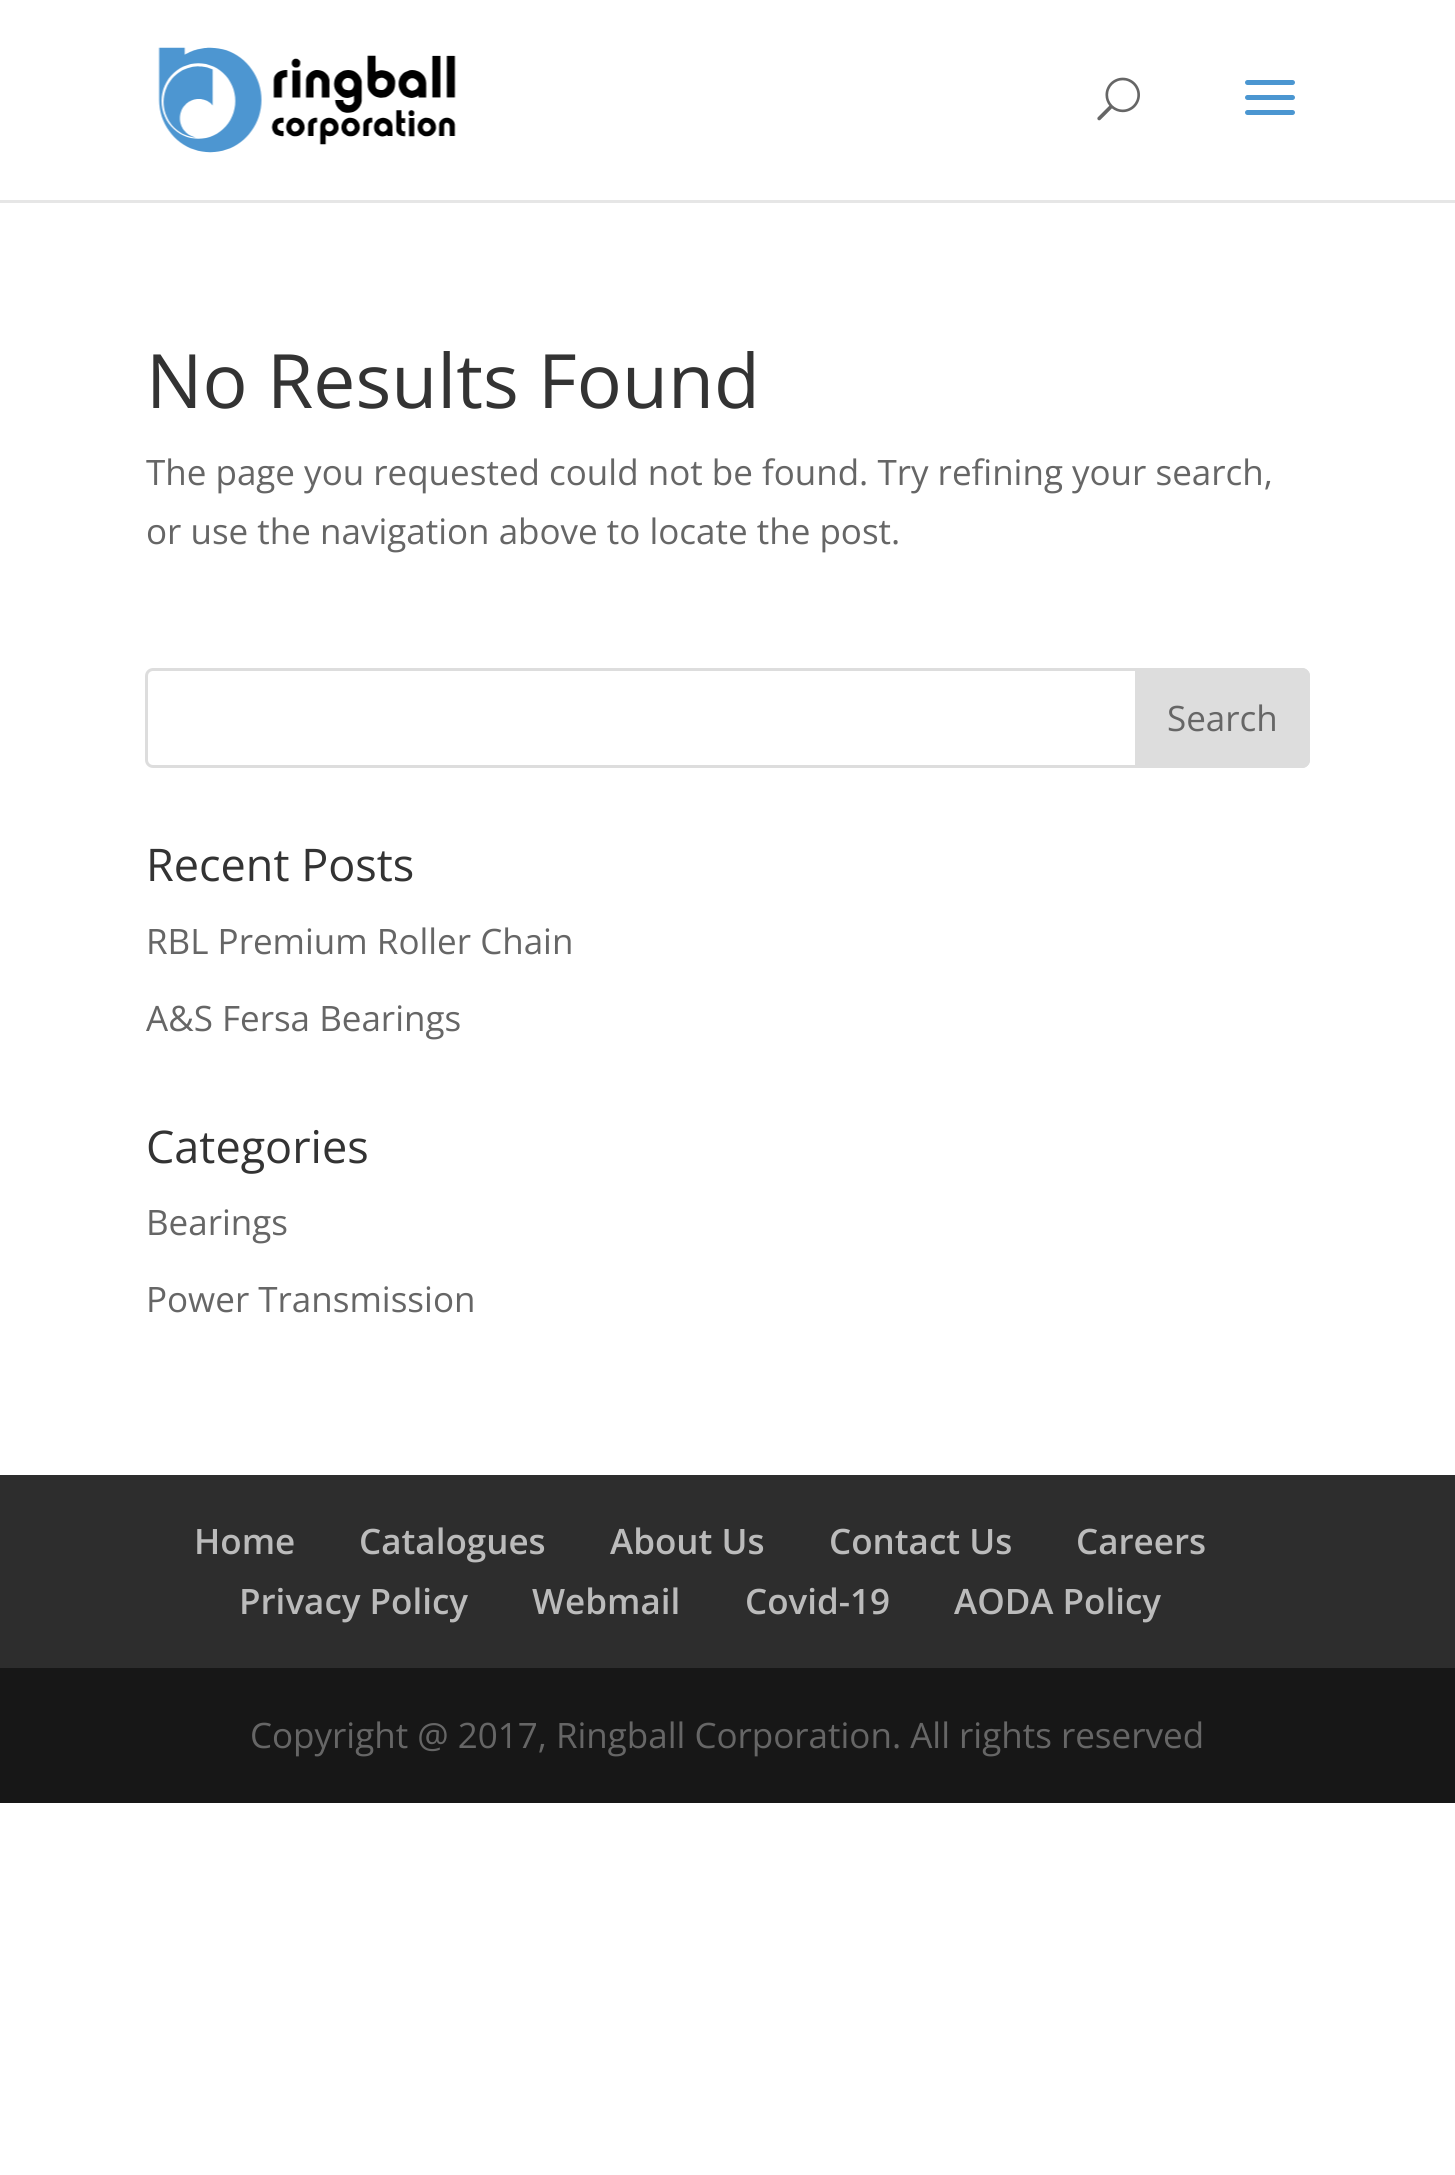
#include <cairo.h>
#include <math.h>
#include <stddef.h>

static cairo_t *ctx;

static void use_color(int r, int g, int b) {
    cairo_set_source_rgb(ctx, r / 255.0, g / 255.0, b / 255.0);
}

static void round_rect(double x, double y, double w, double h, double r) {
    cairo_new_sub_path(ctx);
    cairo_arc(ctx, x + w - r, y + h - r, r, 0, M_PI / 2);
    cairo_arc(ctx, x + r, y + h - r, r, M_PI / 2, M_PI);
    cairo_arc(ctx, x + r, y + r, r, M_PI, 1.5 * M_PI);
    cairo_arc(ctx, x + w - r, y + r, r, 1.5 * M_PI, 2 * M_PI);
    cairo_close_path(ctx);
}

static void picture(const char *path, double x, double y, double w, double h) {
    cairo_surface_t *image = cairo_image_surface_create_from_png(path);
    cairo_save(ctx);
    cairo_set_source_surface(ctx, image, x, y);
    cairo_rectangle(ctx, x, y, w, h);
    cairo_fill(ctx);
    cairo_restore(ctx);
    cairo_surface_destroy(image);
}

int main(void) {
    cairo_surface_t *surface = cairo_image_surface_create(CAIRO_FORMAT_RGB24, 1455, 2175);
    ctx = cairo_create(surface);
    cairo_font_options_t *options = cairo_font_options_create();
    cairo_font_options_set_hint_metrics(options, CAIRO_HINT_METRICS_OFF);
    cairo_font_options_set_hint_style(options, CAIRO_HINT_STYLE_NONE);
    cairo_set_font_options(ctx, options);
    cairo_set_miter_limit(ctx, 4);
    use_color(255, 255, 255);
    cairo_paint(ctx);
    use_color(230, 230, 230);
    cairo_rectangle(ctx, 0, 200, 1455, 3);
    cairo_fill(ctx);
    picture("img1.png", 158, 47, 298, 106);
    picture("img2.png", 1097, 77, 43, 44);
    picture("img3.png", 1245, 80, 50, 35);
    cairo_select_font_face(ctx, "Open Sans", CAIRO_FONT_SLANT_NORMAL, CAIRO_FONT_WEIGHT_NORMAL);
    cairo_set_font_size(ctx, 75);
    use_color(51, 51, 51);
    cairo_move_to(ctx, 146, 408);
    cairo_show_text(ctx, "No Results Found");
    cairo_set_font_size(ctx, 35);
    use_color(102, 102, 102);
    cairo_move_to(ctx, 146, 485);
    cairo_show_text(ctx, "The page you requested could not be found. Try refining your search,");
    cairo_move_to(ctx, 146, 544);
    cairo_show_text(ctx, "or use the navigation above to locate the post.");
    round_rect(146.5, 669.5, 1162, 97, 6.5);
    use_color(221, 221, 221);
    cairo_set_line_width(ctx, 3);
    cairo_stroke(ctx);
    cairo_new_path(ctx);
    cairo_move_to(ctx, 1136.5, 669.5);
    cairo_line_to(ctx, 1302, 669.5);
    cairo_curve_to(ctx, 1305.5, 669.5, 1308.5, 672.5, 1308.5, 676);
    cairo_line_to(ctx, 1308.5, 760);
    cairo_curve_to(ctx, 1308.5, 763.5, 1305.5, 766.5, 1302, 766.5);
    cairo_line_to(ctx, 1136.5, 766.5);
    cairo_close_path(ctx);
    cairo_fill_preserve(ctx);
    cairo_stroke(ctx);
    use_color(102, 102, 102);
    cairo_move_to(ctx, 1167, 731);
    cairo_show_text(ctx, "Search");
    cairo_set_font_size(ctx, 45);
    use_color(51, 51, 51);
    cairo_move_to(ctx, 146, 881);
    cairo_show_text(ctx, "Recent Posts");
    cairo_set_font_size(ctx, 35);
    use_color(102, 102, 102);
    cairo_move_to(ctx, 146, 954);
    cairo_show_text(ctx, "RBL Premium Roller Chain");
    cairo_move_to(ctx, 146, 1031);
    cairo_show_text(ctx, "A&S Fersa Bearings");
    cairo_set_font_size(ctx, 45);
    use_color(51, 51, 51);
    cairo_move_to(ctx, 146, 1163);
    cairo_show_text(ctx, "Categories");
    cairo_set_font_size(ctx, 35);
    use_color(102, 102, 102);
    cairo_move_to(ctx, 146, 1235);
    cairo_show_text(ctx, "Bearings");
    cairo_move_to(ctx, 146, 1312);
    cairo_show_text(ctx, "Power Transmission");
    use_color(45, 45, 45);
    cairo_rectangle(ctx, 0, 1475, 1455, 193);
    cairo_fill(ctx);
    cairo_select_font_face(ctx, "Open Sans SemiBold", CAIRO_FONT_SLANT_NORMAL, CAIRO_FONT_WEIGHT_NORMAL);
    use_color(187, 187, 187);
    cairo_move_to(ctx, 194, 1554);
    cairo_show_text(ctx, "Home");
    cairo_move_to(ctx, 359, 1554);
    cairo_show_text(ctx, "Catalogues");
    cairo_move_to(ctx, 610, 1554);
    cairo_show_text(ctx, "About Us");
    cairo_move_to(ctx, 829, 1554);
    cairo_show_text(ctx, "Contact Us");
    cairo_move_to(ctx, 1076, 1554);
    cairo_show_text(ctx, "Careers");
    cairo_move_to(ctx, 239, 1614);
    cairo_show_text(ctx, "Privacy Policy");
    cairo_move_to(ctx, 532, 1614);
    cairo_show_text(ctx, "Webmail");
    cairo_move_to(ctx, 745, 1614);
    cairo_show_text(ctx, "Covid-19");
    cairo_move_to(ctx, 954, 1614);
    cairo_show_text(ctx, "AODA Policy");
    use_color(23, 23, 23);
    cairo_rectangle(ctx, 0, 1668, 1455, 135);
    cairo_fill(ctx);
    cairo_select_font_face(ctx, "Open Sans", CAIRO_FONT_SLANT_NORMAL, CAIRO_FONT_WEIGHT_NORMAL);
    use_color(102, 102, 102);
    cairo_move_to(ctx, 250, 1748);
    cairo_show_text(ctx, "Copyright @ 2017, Ringball Corporation. All rights reserved");
    cairo_surface_write_to_png(surface, "result.png");
    cairo_font_options_destroy(options);
    cairo_destroy(ctx);
    cairo_surface_destroy(surface);
    return 0;
}
